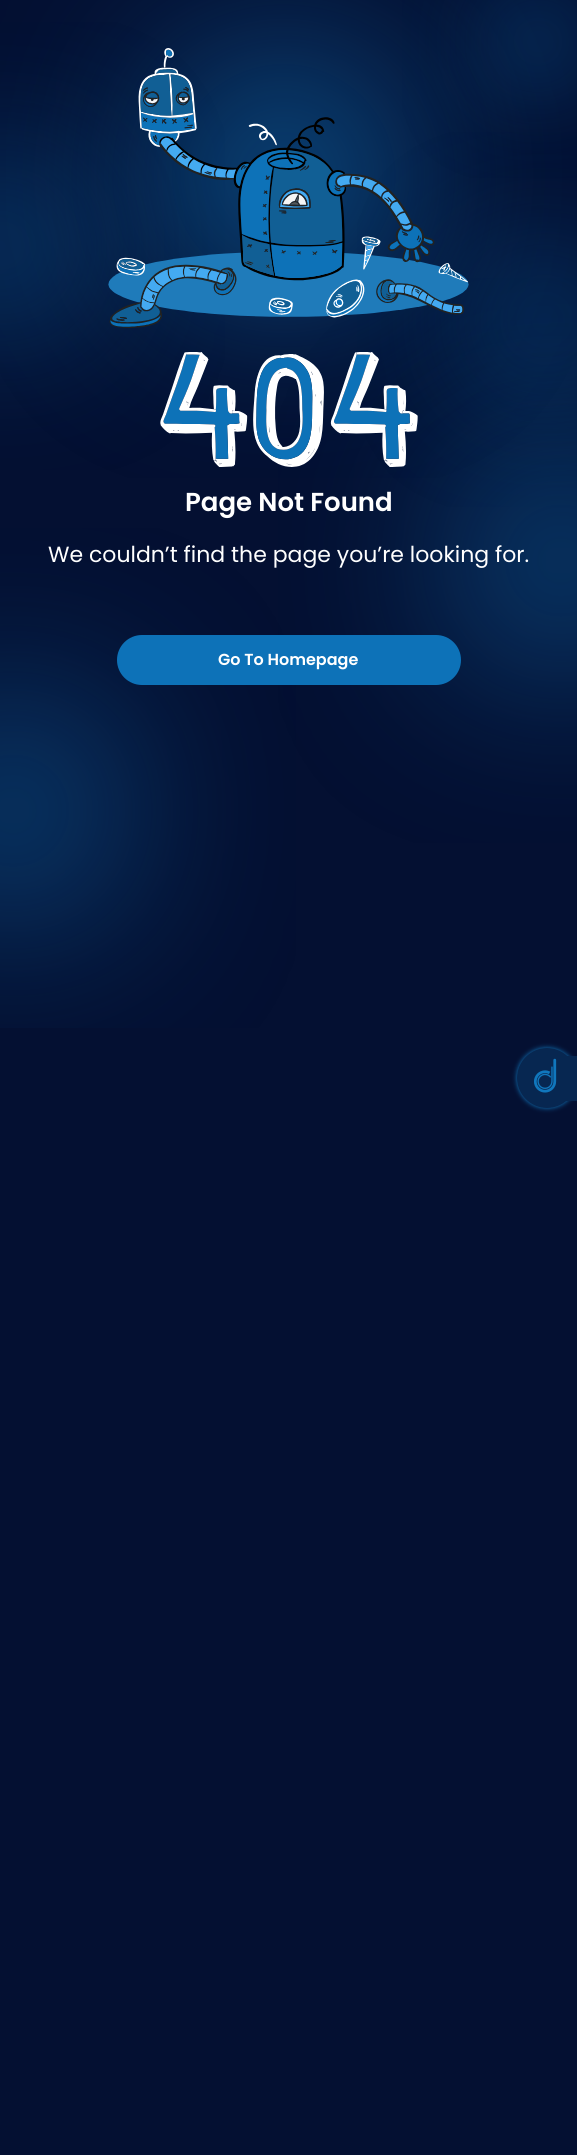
#include <cairo.h>
#include <math.h>
#include <stddef.h>

static cairo_t *ctx;

static void use_color(int r, int g, int b) {
    cairo_set_source_rgb(ctx, r / 255.0, g / 255.0, b / 255.0);
}

static void round_rect(double x, double y, double w, double h, double r) {
    cairo_new_sub_path(ctx);
    cairo_arc(ctx, x + w - r, y + h - r, r, 0, M_PI / 2);
    cairo_arc(ctx, x + r, y + h - r, r, M_PI / 2, M_PI);
    cairo_arc(ctx, x + r, y + r, r, M_PI, 1.5 * M_PI);
    cairo_arc(ctx, x + w - r, y + r, r, 1.5 * M_PI, 2 * M_PI);
    cairo_close_path(ctx);
}

static void shadow(double x, double y, double w, double h, double r, double blur, double alpha) {
    cairo_push_group_with_content(ctx, CAIRO_CONTENT_ALPHA);
    cairo_set_operator(ctx, CAIRO_OPERATOR_SOURCE);
    for (int i = 15; i >= -15 && fmin(w, h) + blur * i / 3 > 0; i -= 2) {
        double e = blur * i / 6;
        cairo_set_source_rgba(ctx, 0, 0, 0, alpha * erfc((i - 1) / 8.5) / 2);
        round_rect(x - e, y - e, w + 2 * e, h + 2 * e, fmax(0, fmin(r + e + blur * .6, fmin(w, h) / 2 + e)));
        cairo_fill(ctx);
    }
    cairo_pattern_t *soft = cairo_pop_group(ctx);
    cairo_mask(ctx, soft);
    cairo_pattern_destroy(soft);
}

static void picture(const char *path, double x, double y, double w, double h) {
    cairo_surface_t *image = cairo_image_surface_create_from_png(path);
    cairo_save(ctx);
    cairo_set_source_surface(ctx, image, x, y);
    cairo_rectangle(ctx, x, y, w, h);
    cairo_fill(ctx);
    cairo_restore(ctx);
    cairo_surface_destroy(image);
}

int main(void) {
    cairo_surface_t *surface = cairo_image_surface_create(CAIRO_FORMAT_RGB24, 577, 2155);
    ctx = cairo_create(surface);
    cairo_font_options_t *options = cairo_font_options_create();
    cairo_font_options_set_hint_metrics(options, CAIRO_HINT_METRICS_OFF);
    cairo_font_options_set_hint_style(options, CAIRO_HINT_STYLE_NONE);
    cairo_set_font_options(ctx, options);
    cairo_set_miter_limit(ctx, 4);
    use_color(4, 16, 50);
    cairo_paint(ctx);
    picture("img1.png", 0, 0, 577, 1028);
    picture("img2.png", 108, 48, 361, 280);
    picture("img3.png", 160, 352, 258, 115);
    cairo_select_font_face(ctx, "Poppins SemiBold", CAIRO_FONT_SLANT_NORMAL, CAIRO_FONT_WEIGHT_NORMAL);
    cairo_set_font_size(ctx, 26);
    use_color(255, 255, 255);
    cairo_move_to(ctx, 185, 511);
    cairo_show_text(ctx, "Page Not Found");
    cairo_select_font_face(ctx, "Poppins", CAIRO_FONT_SLANT_NORMAL, CAIRO_FONT_WEIGHT_NORMAL);
    cairo_set_font_size(ctx, 22);
    cairo_move_to(ctx, 48, 562);
    cairo_show_text(ctx, "We couldn’t find the page you’re looking for.");
    use_color(13, 114, 184);
    round_rect(117, 635, 344, 50, 25);
    cairo_fill(ctx);
    cairo_select_font_face(ctx, "Poppins SemiBold", CAIRO_FONT_SLANT_NORMAL, CAIRO_FONT_WEIGHT_NORMAL);
    cairo_set_font_size(ctx, 16);
    use_color(255, 255, 255);
    cairo_move_to(ctx, 218, 665);
    cairo_show_text(ctx, "Go To Homepage");
    use_color(16, 119, 189);
    shadow(517, 1048, 60, 60, 30, 2.5, 1);
    use_color(7, 39, 81);
    cairo_arc(ctx, 547, 1078, 30, 0, 2 * M_PI);
    cairo_fill(ctx);
    round_rect(539, 1056, 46, 45, 8);
    cairo_fill(ctx);
    picture("img4.png", 534, 1058, 23, 35);
    cairo_surface_write_to_png(surface, "result.png");
    cairo_font_options_destroy(options);
    cairo_destroy(ctx);
    cairo_surface_destroy(surface);
    return 0;
}
